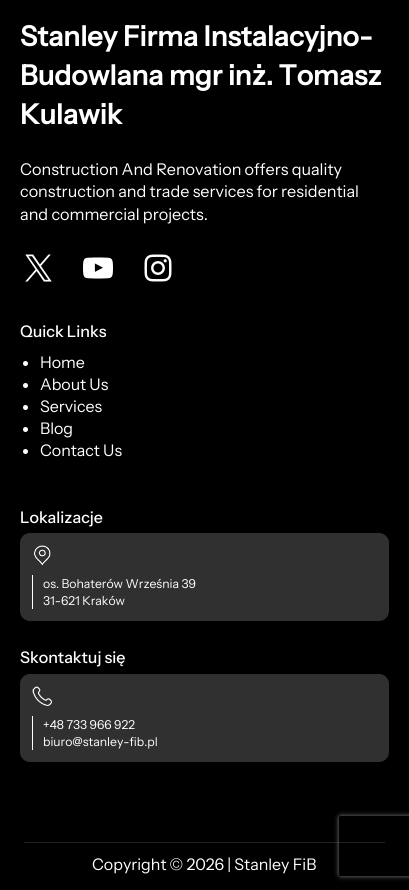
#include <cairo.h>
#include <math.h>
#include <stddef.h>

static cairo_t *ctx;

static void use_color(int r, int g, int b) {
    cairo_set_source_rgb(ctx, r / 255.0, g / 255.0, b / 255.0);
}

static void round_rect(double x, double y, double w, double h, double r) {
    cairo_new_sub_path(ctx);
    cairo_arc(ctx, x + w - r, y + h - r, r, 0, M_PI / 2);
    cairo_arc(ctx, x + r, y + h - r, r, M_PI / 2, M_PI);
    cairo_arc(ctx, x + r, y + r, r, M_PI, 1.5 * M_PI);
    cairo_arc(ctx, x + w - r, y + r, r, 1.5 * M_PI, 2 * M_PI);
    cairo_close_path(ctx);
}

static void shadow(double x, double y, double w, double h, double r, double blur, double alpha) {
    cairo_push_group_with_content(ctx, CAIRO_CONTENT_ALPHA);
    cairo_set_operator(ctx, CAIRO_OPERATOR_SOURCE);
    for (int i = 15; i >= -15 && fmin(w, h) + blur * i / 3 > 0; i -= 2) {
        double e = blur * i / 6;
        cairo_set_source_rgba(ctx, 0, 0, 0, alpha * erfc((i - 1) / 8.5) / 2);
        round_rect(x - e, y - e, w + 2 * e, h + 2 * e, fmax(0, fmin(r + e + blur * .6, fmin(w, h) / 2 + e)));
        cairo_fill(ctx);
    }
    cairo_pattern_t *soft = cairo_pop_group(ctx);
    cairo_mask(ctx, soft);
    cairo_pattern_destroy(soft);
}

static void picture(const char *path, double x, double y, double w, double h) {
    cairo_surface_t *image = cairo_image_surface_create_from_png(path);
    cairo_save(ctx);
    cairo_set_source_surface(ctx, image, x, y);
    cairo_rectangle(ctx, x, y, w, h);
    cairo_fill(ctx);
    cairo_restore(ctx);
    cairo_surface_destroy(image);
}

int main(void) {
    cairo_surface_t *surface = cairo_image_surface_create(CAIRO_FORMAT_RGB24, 409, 890);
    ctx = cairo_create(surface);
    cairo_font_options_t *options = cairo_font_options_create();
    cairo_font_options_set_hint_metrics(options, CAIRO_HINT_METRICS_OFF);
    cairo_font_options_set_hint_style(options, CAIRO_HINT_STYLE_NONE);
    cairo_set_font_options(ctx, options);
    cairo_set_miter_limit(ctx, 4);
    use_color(0, 0, 0);
    cairo_paint(ctx);
    cairo_select_font_face(ctx, "Instrument Sans", CAIRO_FONT_SLANT_NORMAL, CAIRO_FONT_WEIGHT_BOLD);
    cairo_set_font_size(ctx, 27.75);
    use_color(255, 255, 255);
    cairo_move_to(ctx, 20, 46);
    cairo_show_text(ctx, "Stanley Firma Instalacyjno-");
    cairo_move_to(ctx, 20, 85);
    cairo_show_text(ctx, "Budowlana mgr inż. Tomasz");
    cairo_move_to(ctx, 20, 124);
    cairo_show_text(ctx, "Kulawik");
    cairo_select_font_face(ctx, "Instrument Sans", CAIRO_FONT_SLANT_NORMAL, CAIRO_FONT_WEIGHT_NORMAL);
    cairo_set_font_size(ctx, 16.2);
    cairo_move_to(ctx, 20, 175);
    cairo_show_text(ctx, "Construction And Renovation offers quality");
    cairo_move_to(ctx, 20, 197);
    cairo_show_text(ctx, "construction and trade services for residential");
    cairo_move_to(ctx, 20, 220);
    cairo_show_text(ctx, "and commercial projects.");
    picture("img1.png", 25, 254, 27, 28);
    picture("img2.png", 83, 257, 30, 22);
    picture("img3.png", 144, 254, 28, 28);
    cairo_select_font_face(ctx, "Instrument Sans Medium", CAIRO_FONT_SLANT_NORMAL, CAIRO_FONT_WEIGHT_NORMAL);
    cairo_set_font_size(ctx, 16);
    cairo_move_to(ctx, 20, 337);
    cairo_show_text(ctx, "Quick Links");
    cairo_new_path(ctx);
    cairo_arc(ctx, 25.5, 363.5, 2.5, 0, 2 * M_PI);
    cairo_fill(ctx);
    cairo_select_font_face(ctx, "Instrument Sans", CAIRO_FONT_SLANT_NORMAL, CAIRO_FONT_WEIGHT_NORMAL);
    cairo_move_to(ctx, 40, 368);
    cairo_show_text(ctx, "Home");
    cairo_new_path(ctx);
    cairo_arc(ctx, 25.5, 385.5, 2.5, 0, 2 * M_PI);
    cairo_fill(ctx);
    cairo_move_to(ctx, 40, 390);
    cairo_show_text(ctx, "About Us");
    cairo_new_path(ctx);
    cairo_arc(ctx, 25.5, 407.5, 2.5, 0, 2 * M_PI);
    cairo_fill(ctx);
    cairo_move_to(ctx, 40, 412);
    cairo_show_text(ctx, "Services");
    cairo_new_path(ctx);
    cairo_arc(ctx, 25.5, 429.5, 2.5, 0, 2 * M_PI);
    cairo_fill(ctx);
    cairo_move_to(ctx, 40, 434);
    cairo_show_text(ctx, "Blog");
    cairo_new_path(ctx);
    cairo_arc(ctx, 25.5, 451.5, 2.5, 0, 2 * M_PI);
    cairo_fill(ctx);
    cairo_move_to(ctx, 40, 456);
    cairo_show_text(ctx, "Contact Us");
    cairo_select_font_face(ctx, "Instrument Sans Medium", CAIRO_FONT_SLANT_NORMAL, CAIRO_FONT_WEIGHT_NORMAL);
    cairo_move_to(ctx, 20, 523);
    cairo_show_text(ctx, "Lokalizacje");
    use_color(48, 48, 48);
    round_rect(20, 533, 369, 88, 10);
    cairo_fill(ctx);
    picture("img4.png", 34, 545, 17, 20);
    use_color(255, 255, 255);
    cairo_rectangle(ctx, 32, 575, 1, 34);
    cairo_fill(ctx);
    cairo_select_font_face(ctx, "Instrument Sans", CAIRO_FONT_SLANT_NORMAL, CAIRO_FONT_WEIGHT_NORMAL);
    cairo_set_font_size(ctx, 12.25);
    cairo_move_to(ctx, 43, 588);
    cairo_show_text(ctx, "os. Bohaterów Września 39");
    cairo_move_to(ctx, 43, 605);
    cairo_show_text(ctx, "31-621 Kraków");
    cairo_select_font_face(ctx, "Instrument Sans Medium", CAIRO_FONT_SLANT_NORMAL, CAIRO_FONT_WEIGHT_NORMAL);
    cairo_set_font_size(ctx, 16);
    cairo_move_to(ctx, 20, 663);
    cairo_show_text(ctx, "Skontaktuj się");
    use_color(48, 48, 48);
    round_rect(20, 674, 369, 88, 10);
    cairo_fill(ctx);
    picture("img5.png", 32, 686, 20, 20);
    use_color(255, 255, 255);
    cairo_rectangle(ctx, 32, 716, 1, 34);
    cairo_fill(ctx);
    cairo_select_font_face(ctx, "Instrument Sans", CAIRO_FONT_SLANT_NORMAL, CAIRO_FONT_WEIGHT_NORMAL);
    cairo_set_font_size(ctx, 12.25);
    cairo_move_to(ctx, 43, 729);
    cairo_show_text(ctx, "+48 733 966 922");
    cairo_move_to(ctx, 43, 746);
    cairo_show_text(ctx, "biuro@stanley-fib.pl");
    use_color(34, 34, 34);
    cairo_rectangle(ctx, 24, 842, 361, 1);
    cairo_fill(ctx);
    cairo_set_font_size(ctx, 16);
    use_color(255, 255, 255);
    cairo_move_to(ctx, 92, 870);
    cairo_show_text(ctx, "Copyright © 2026 | Stanley FiB");
    cairo_save(ctx);
    cairo_set_fill_rule(ctx, CAIRO_FILL_RULE_EVEN_ODD);
    cairo_new_path(ctx);
    cairo_move_to(ctx, 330, 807);
    cairo_line_to(ctx, 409, 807);
    cairo_line_to(ctx, 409, 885);
    cairo_line_to(ctx, 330, 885);
    cairo_close_path(ctx);
    cairo_move_to(ctx, 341, 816);
    cairo_line_to(ctx, 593, 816);
    cairo_curve_to(ctx, 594, 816, 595, 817, 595, 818);
    cairo_line_to(ctx, 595, 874);
    cairo_curve_to(ctx, 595, 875, 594, 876, 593, 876);
    cairo_line_to(ctx, 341, 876);
    cairo_curve_to(ctx, 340, 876, 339, 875, 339, 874);
    cairo_line_to(ctx, 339, 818);
    cairo_curve_to(ctx, 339, 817, 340, 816, 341, 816);
    cairo_close_path(ctx);
    cairo_clip(ctx);
    use_color(128, 128, 128);
    shadow(339, 816, 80, 60, 2, 2.5, 1);
    cairo_restore(ctx);
    cairo_surface_write_to_png(surface, "result.png");
    cairo_font_options_destroy(options);
    cairo_destroy(ctx);
    cairo_surface_destroy(surface);
    return 0;
}
